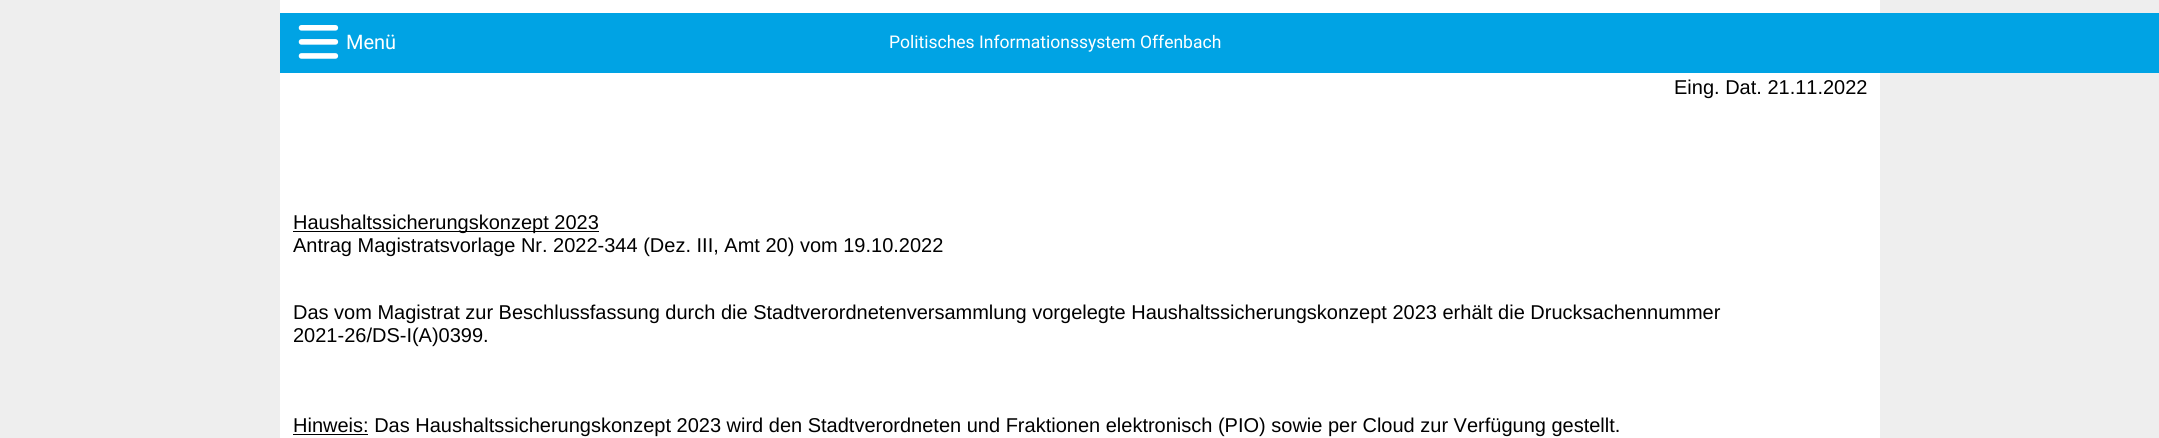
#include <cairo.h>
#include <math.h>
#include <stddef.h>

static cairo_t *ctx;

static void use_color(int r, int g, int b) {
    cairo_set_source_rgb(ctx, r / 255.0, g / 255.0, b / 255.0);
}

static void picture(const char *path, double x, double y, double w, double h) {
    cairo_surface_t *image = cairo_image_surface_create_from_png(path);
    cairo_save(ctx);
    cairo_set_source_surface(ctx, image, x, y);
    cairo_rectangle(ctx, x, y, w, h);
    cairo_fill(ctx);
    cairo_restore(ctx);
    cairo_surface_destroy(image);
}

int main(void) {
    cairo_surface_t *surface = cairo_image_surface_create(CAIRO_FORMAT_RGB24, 2159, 438);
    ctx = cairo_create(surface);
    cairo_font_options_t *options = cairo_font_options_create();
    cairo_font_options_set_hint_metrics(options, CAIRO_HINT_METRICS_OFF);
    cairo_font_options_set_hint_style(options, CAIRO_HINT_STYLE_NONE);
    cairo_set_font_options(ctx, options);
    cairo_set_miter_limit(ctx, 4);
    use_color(238, 238, 238);
    cairo_paint(ctx);
    use_color(255, 255, 255);
    cairo_rectangle(ctx, 280, 0, 1600, 438);
    cairo_fill(ctx);
    use_color(0, 163, 228);
    cairo_rectangle(ctx, 280, 13, 1879, 60);
    cairo_fill(ctx);
    picture("img1.png", 298, 25, 41, 34);
    cairo_select_font_face(ctx, "Roboto", CAIRO_FONT_SLANT_NORMAL, CAIRO_FONT_WEIGHT_NORMAL);
    cairo_set_font_size(ctx, 20);
    use_color(255, 255, 255);
    cairo_move_to(ctx, 346, 49);
    cairo_show_text(ctx, "Menü");
    cairo_set_font_size(ctx, 17.5);
    cairo_move_to(ctx, 889, 48);
    cairo_show_text(ctx, "Politisches Informationssystem Offenbach");
    cairo_select_font_face(ctx, "Liberation Sans", CAIRO_FONT_SLANT_NORMAL, CAIRO_FONT_WEIGHT_NORMAL);
    cairo_set_font_size(ctx, 20);
    use_color(0, 0, 0);
    cairo_move_to(ctx, 1674, 94);
    cairo_show_text(ctx, "Eing. Dat. 21.11.2022");
    cairo_rectangle(ctx, 293, 231, 306, 1);
    cairo_fill(ctx);
    cairo_move_to(ctx, 293, 229);
    cairo_show_text(ctx, "Haushaltssicherungskonzept 2023");
    cairo_move_to(ctx, 293, 252);
    cairo_show_text(ctx, "Antrag Magistratsvorlage Nr. 2022-344 (Dez. III, Amt 20) vom 19.10.2022");
    cairo_move_to(ctx, 293, 319);
    cairo_show_text(ctx, "Das vom Magistrat zur Beschlussfassung durch die Stadtverordnetenversammlung vorgelegte Haushaltssicherungskonzept 2023 erhält die Drucksachennummer");
    cairo_move_to(ctx, 293, 342);
    cairo_show_text(ctx, "2021-26/DS-I(A)0399.");
    cairo_rectangle(ctx, 293, 434, 75, 1);
    cairo_fill(ctx);
    cairo_move_to(ctx, 293, 432);
    cairo_show_text(ctx, "Hinweis: Das Haushaltssicherungskonzept 2023 wird den Stadtverordneten und Fraktionen elektronisch (PIO) sowie per Cloud zur Verfügung gestellt.");
    cairo_surface_write_to_png(surface, "result.png");
    cairo_font_options_destroy(options);
    cairo_destroy(ctx);
    cairo_surface_destroy(surface);
    return 0;
}
